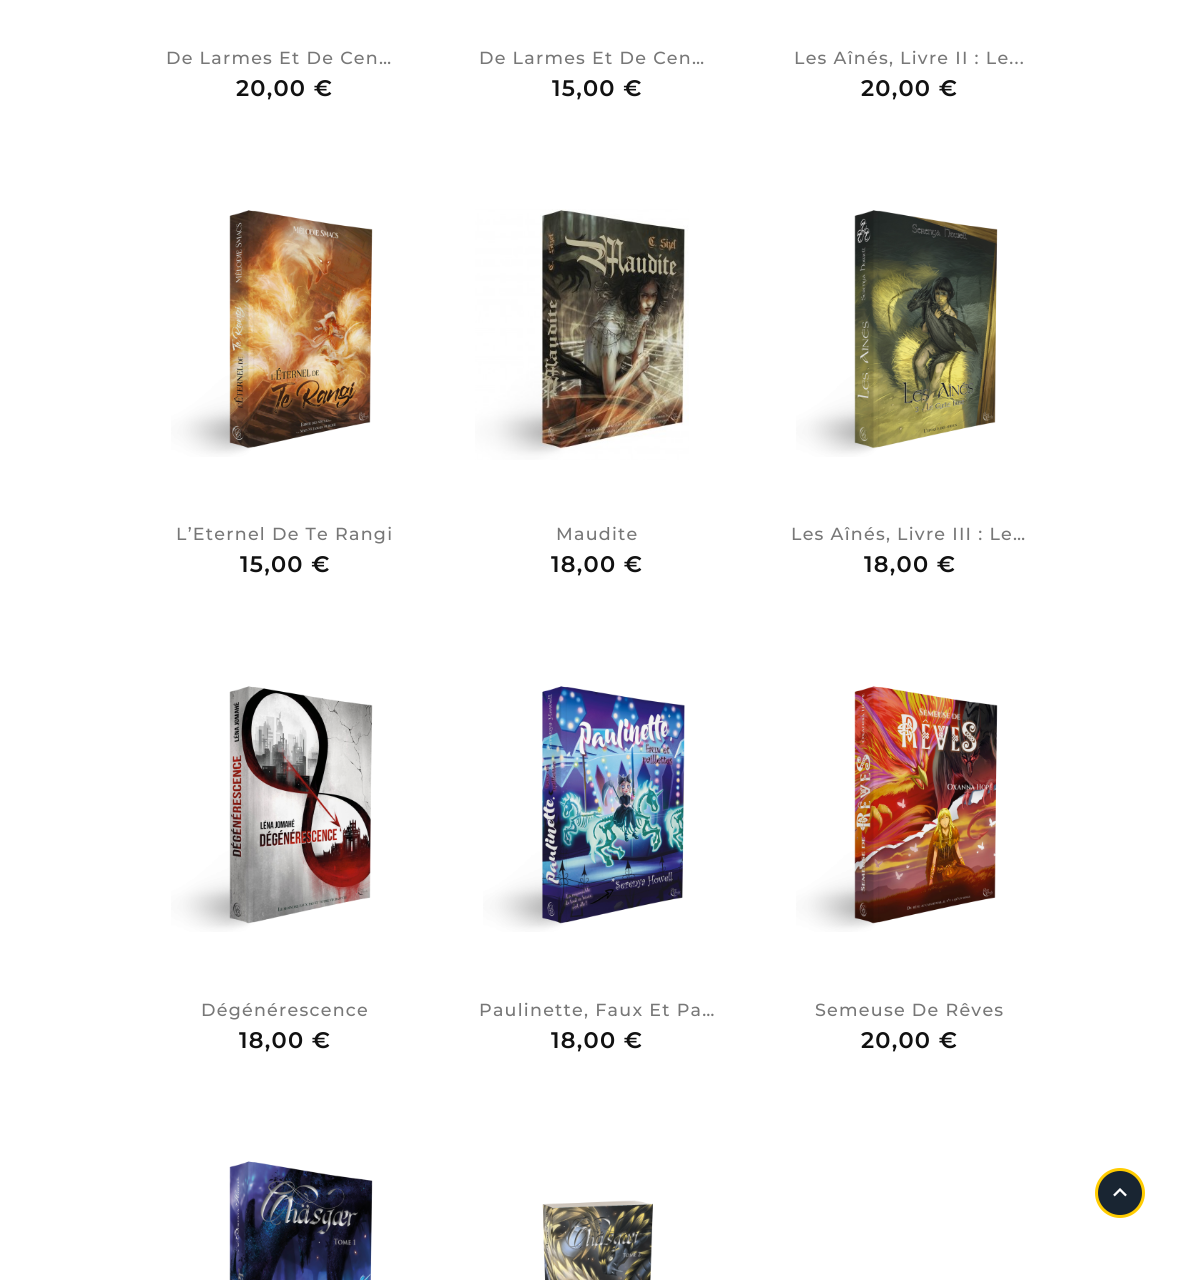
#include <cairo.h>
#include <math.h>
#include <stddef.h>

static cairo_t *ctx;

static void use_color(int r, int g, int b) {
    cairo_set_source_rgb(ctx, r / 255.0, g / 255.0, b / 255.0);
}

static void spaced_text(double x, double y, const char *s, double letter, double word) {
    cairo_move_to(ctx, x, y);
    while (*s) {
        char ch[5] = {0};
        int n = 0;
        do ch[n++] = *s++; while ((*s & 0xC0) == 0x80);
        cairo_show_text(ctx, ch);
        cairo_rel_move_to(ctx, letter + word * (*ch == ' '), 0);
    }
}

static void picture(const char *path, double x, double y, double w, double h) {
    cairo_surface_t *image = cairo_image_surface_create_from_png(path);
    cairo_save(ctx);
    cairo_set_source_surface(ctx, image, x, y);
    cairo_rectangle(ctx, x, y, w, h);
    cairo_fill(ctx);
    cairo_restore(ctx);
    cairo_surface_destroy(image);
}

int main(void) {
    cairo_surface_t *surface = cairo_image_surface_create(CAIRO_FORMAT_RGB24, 1194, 1280);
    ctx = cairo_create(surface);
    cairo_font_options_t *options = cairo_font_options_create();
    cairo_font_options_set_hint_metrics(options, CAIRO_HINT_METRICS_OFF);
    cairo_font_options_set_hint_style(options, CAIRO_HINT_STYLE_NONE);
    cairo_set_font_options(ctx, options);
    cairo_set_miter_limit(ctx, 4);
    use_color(255, 255, 255);
    cairo_paint(ctx);
    cairo_select_font_face(ctx, "Montserrat Medium", CAIRO_FONT_SLANT_NORMAL, CAIRO_FONT_WEIGHT_NORMAL);
    cairo_set_font_size(ctx, 17.5);
    use_color(119, 119, 119);
    spaced_text(166, 64, "De Larmes Et De Cen…", 1.25, 0);
    cairo_select_font_face(ctx, "Montserrat SemiBold", CAIRO_FONT_SLANT_NORMAL, CAIRO_FONT_WEIGHT_NORMAL);
    cairo_set_font_size(ctx, 22.5);
    use_color(17, 17, 17);
    spaced_text(236, 96, "20,00 €", 1.25, 0);
    cairo_select_font_face(ctx, "Montserrat Medium", CAIRO_FONT_SLANT_NORMAL, CAIRO_FONT_WEIGHT_NORMAL);
    cairo_set_font_size(ctx, 17.5);
    use_color(119, 119, 119);
    spaced_text(479, 64, "De Larmes Et De Cen…", 1.25, 0);
    cairo_select_font_face(ctx, "Montserrat SemiBold", CAIRO_FONT_SLANT_NORMAL, CAIRO_FONT_WEIGHT_NORMAL);
    cairo_set_font_size(ctx, 22.5);
    use_color(17, 17, 17);
    spaced_text(552, 96, "15,00 €", 1.25, 0);
    cairo_select_font_face(ctx, "Montserrat Medium", CAIRO_FONT_SLANT_NORMAL, CAIRO_FONT_WEIGHT_NORMAL);
    cairo_set_font_size(ctx, 17.5);
    use_color(119, 119, 119);
    spaced_text(794, 64, "Les Aînés, Livre II : Le...", 1.25, 0);
    cairo_select_font_face(ctx, "Montserrat SemiBold", CAIRO_FONT_SLANT_NORMAL, CAIRO_FONT_WEIGHT_NORMAL);
    cairo_set_font_size(ctx, 22.5);
    use_color(17, 17, 17);
    spaced_text(861, 96, "20,00 €", 1.25, 0);
    picture("img1.png", 171, 210, 202, 247);
    cairo_select_font_face(ctx, "Montserrat Medium", CAIRO_FONT_SLANT_NORMAL, CAIRO_FONT_WEIGHT_NORMAL);
    cairo_set_font_size(ctx, 17.5);
    use_color(119, 119, 119);
    spaced_text(176, 540, "L’Eternel De Te Rangi", 1.25, 0);
    cairo_select_font_face(ctx, "Montserrat SemiBold", CAIRO_FONT_SLANT_NORMAL, CAIRO_FONT_WEIGHT_NORMAL);
    cairo_set_font_size(ctx, 22.5);
    use_color(17, 17, 17);
    spaced_text(240, 572, "15,00 €", 1.25, 0);
    picture("img2.png", 475, 209, 214, 251);
    cairo_select_font_face(ctx, "Montserrat Medium", CAIRO_FONT_SLANT_NORMAL, CAIRO_FONT_WEIGHT_NORMAL);
    cairo_set_font_size(ctx, 17.5);
    use_color(119, 119, 119);
    spaced_text(556, 540, "Maudite", 1.25, 0);
    cairo_select_font_face(ctx, "Montserrat SemiBold", CAIRO_FONT_SLANT_NORMAL, CAIRO_FONT_WEIGHT_NORMAL);
    cairo_set_font_size(ctx, 22.5);
    use_color(17, 17, 17);
    spaced_text(551, 572, "18,00 €", 1.25, 0);
    picture("img3.png", 796, 210, 202, 247);
    cairo_select_font_face(ctx, "Montserrat Medium", CAIRO_FONT_SLANT_NORMAL, CAIRO_FONT_WEIGHT_NORMAL);
    cairo_set_font_size(ctx, 17.5);
    use_color(119, 119, 119);
    spaced_text(791, 540, "Les Aînés, Livre III : Le…", 1.25, 0);
    cairo_select_font_face(ctx, "Montserrat SemiBold", CAIRO_FONT_SLANT_NORMAL, CAIRO_FONT_WEIGHT_NORMAL);
    cairo_set_font_size(ctx, 22.5);
    use_color(17, 17, 17);
    spaced_text(864, 572, "18,00 €", 1.25, 0);
    picture("img4.png", 171, 686, 202, 246);
    cairo_select_font_face(ctx, "Montserrat Medium", CAIRO_FONT_SLANT_NORMAL, CAIRO_FONT_WEIGHT_NORMAL);
    cairo_set_font_size(ctx, 17.5);
    use_color(119, 119, 119);
    spaced_text(201, 1016, "Dégénérescence", 1.25, 0);
    cairo_select_font_face(ctx, "Montserrat SemiBold", CAIRO_FONT_SLANT_NORMAL, CAIRO_FONT_WEIGHT_NORMAL);
    cairo_set_font_size(ctx, 22.5);
    use_color(17, 17, 17);
    spaced_text(239, 1048, "18,00 €", 1.25, 0);
    picture("img5.png", 483, 686, 202, 246);
    cairo_select_font_face(ctx, "Montserrat Medium", CAIRO_FONT_SLANT_NORMAL, CAIRO_FONT_WEIGHT_NORMAL);
    cairo_set_font_size(ctx, 17.5);
    use_color(119, 119, 119);
    spaced_text(479, 1016, "Paulinette, Faux Et Pa…", 1.25, 0);
    cairo_select_font_face(ctx, "Montserrat SemiBold", CAIRO_FONT_SLANT_NORMAL, CAIRO_FONT_WEIGHT_NORMAL);
    cairo_set_font_size(ctx, 22.5);
    use_color(17, 17, 17);
    spaced_text(551, 1048, "18,00 €", 1.25, 0);
    picture("img6.png", 796, 686, 202, 246);
    cairo_select_font_face(ctx, "Montserrat Medium", CAIRO_FONT_SLANT_NORMAL, CAIRO_FONT_WEIGHT_NORMAL);
    cairo_set_font_size(ctx, 17.5);
    use_color(119, 119, 119);
    spaced_text(815, 1016, "Semeuse De Rêves", 1.25, 0);
    cairo_select_font_face(ctx, "Montserrat SemiBold", CAIRO_FONT_SLANT_NORMAL, CAIRO_FONT_WEIGHT_NORMAL);
    cairo_set_font_size(ctx, 22.5);
    use_color(17, 17, 17);
    spaced_text(861, 1048, "20,00 €", 1.25, 0);
    picture("img7.png", 229, 1161, 144, 119);
    picture("img8.png", 542, 1200, 111, 80);
    use_color(25, 37, 50);
    cairo_arc(ctx, 1120, 1193, 23.5, 0, 2 * M_PI);
    cairo_fill_preserve(ctx);
    use_color(255, 204, 1);
    cairo_set_line_width(ctx, 3);
    cairo_stroke(ctx);
    picture("img9.png", 1113, 1188, 14, 9);
    cairo_surface_write_to_png(surface, "result.png");
    cairo_font_options_destroy(options);
    cairo_destroy(ctx);
    cairo_surface_destroy(surface);
    return 0;
}
